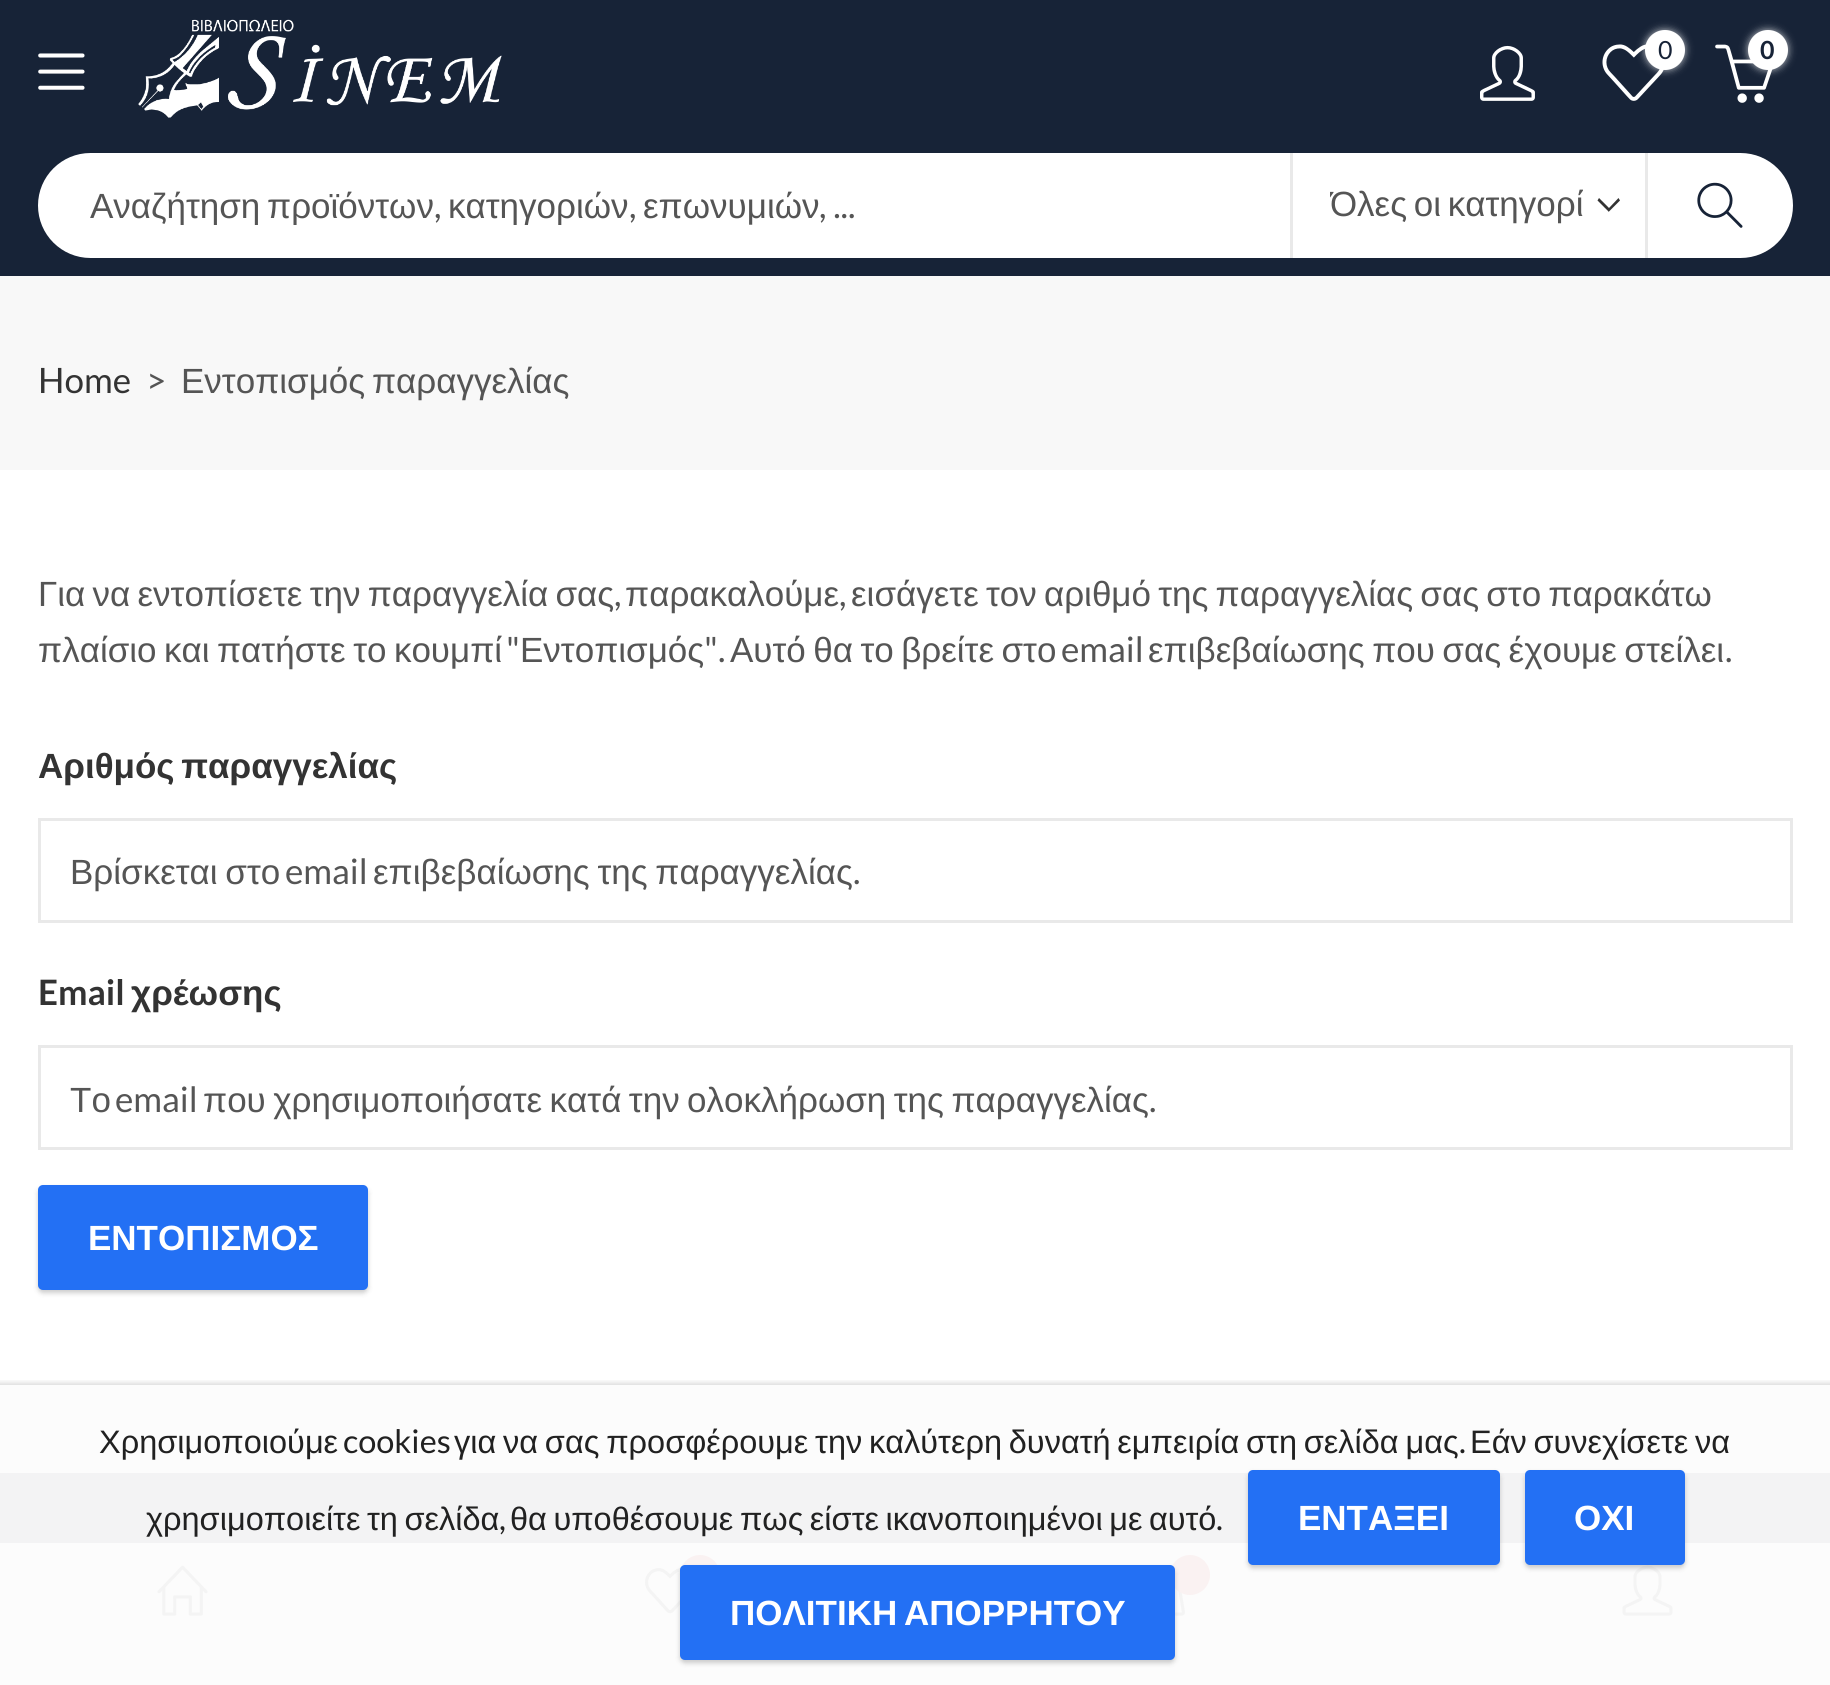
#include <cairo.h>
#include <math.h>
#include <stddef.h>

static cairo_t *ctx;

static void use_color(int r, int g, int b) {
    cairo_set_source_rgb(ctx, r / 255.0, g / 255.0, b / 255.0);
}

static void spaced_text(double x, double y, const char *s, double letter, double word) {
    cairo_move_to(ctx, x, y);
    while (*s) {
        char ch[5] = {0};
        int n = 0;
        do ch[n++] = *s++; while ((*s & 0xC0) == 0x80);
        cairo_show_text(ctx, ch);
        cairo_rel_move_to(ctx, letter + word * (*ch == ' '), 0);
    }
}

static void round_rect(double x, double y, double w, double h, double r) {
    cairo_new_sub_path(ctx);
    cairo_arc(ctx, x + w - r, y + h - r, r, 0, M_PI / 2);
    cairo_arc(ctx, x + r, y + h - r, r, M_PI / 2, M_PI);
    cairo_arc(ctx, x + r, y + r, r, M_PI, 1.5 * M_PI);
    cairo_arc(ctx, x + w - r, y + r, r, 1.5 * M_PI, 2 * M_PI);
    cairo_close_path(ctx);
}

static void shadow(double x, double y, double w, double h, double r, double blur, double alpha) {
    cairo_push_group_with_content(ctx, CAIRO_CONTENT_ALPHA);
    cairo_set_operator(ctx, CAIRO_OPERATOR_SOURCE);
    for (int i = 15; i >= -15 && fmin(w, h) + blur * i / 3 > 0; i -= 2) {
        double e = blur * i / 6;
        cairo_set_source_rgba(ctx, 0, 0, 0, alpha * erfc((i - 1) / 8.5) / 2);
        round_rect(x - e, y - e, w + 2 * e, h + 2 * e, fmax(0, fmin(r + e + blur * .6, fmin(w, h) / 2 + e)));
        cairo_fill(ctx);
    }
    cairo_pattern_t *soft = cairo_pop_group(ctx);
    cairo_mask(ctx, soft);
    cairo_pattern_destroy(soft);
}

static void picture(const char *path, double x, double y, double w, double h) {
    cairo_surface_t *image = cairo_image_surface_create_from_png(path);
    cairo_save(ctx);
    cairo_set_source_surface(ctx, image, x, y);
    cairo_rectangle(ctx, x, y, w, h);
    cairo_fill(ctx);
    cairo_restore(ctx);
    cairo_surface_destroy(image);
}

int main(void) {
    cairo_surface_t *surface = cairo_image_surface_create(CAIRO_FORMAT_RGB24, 1830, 1685);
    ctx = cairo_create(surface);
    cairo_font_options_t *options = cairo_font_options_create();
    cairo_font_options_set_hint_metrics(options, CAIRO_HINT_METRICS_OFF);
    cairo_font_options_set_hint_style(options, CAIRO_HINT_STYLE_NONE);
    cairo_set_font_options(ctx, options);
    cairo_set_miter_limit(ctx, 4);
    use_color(255, 255, 255);
    cairo_paint(ctx);
    use_color(252, 252, 252);
    cairo_rectangle(ctx, 0, 1385, 1830, 88);
    cairo_fill(ctx);
    use_color(23, 35, 55);
    cairo_rectangle(ctx, 0, 0, 1830, 276);
    cairo_fill(ctx);
    picture("img1.png", 38, 53, 47, 37);
    picture("img2.png", 138, 19, 364, 99);
    picture("img3.png", 1480, 45, 55, 56);
    picture("img4.png", 1602, 44, 62, 57);
    use_color(255, 255, 255);
    shadow(1645, 30, 40, 40, 20, 4, 0.7);
    use_color(255, 255, 255);
    cairo_arc(ctx, 1665, 50, 20, 0, 2 * M_PI);
    cairo_fill(ctx);
    cairo_select_font_face(ctx, "Lato", CAIRO_FONT_SLANT_NORMAL, CAIRO_FONT_WEIGHT_NORMAL);
    cairo_set_font_size(ctx, 25);
    use_color(23, 35, 55);
    cairo_move_to(ctx, 1658, 59);
    cairo_show_text(ctx, "0");
    picture("img5.png", 1715, 44, 58, 59);
    use_color(255, 255, 255);
    shadow(1748, 30, 40, 40, 20, 4, 0.7);
    use_color(255, 255, 255);
    cairo_arc(ctx, 1768, 50, 20, 0, 2 * M_PI);
    cairo_fill(ctx);
    cairo_select_font_face(ctx, "Lato", CAIRO_FONT_SLANT_NORMAL, CAIRO_FONT_WEIGHT_BOLD);
    use_color(23, 35, 55);
    cairo_move_to(ctx, 1760, 59);
    cairo_show_text(ctx, "0");
    use_color(255, 255, 255);
    cairo_new_path(ctx);
    cairo_move_to(ctx, 90.5, 153);
    cairo_line_to(ctx, 1293, 153);
    cairo_line_to(ctx, 1293, 258);
    cairo_line_to(ctx, 90.5, 258);
    cairo_curve_to(ctx, 61.5, 258, 38, 234.5, 38, 205.5);
    cairo_curve_to(ctx, 38, 176.5, 61.5, 153, 90.5, 153);
    cairo_close_path(ctx);
    cairo_fill(ctx);
    use_color(233, 233, 233);
    cairo_rectangle(ctx, 1290, 153, 3, 105);
    cairo_fill(ctx);
    cairo_save(ctx);
    cairo_rectangle(ctx, 90, 183, 1160, 42);
    cairo_clip(ctx);
    cairo_select_font_face(ctx, "Liberation Sans", CAIRO_FONT_SLANT_NORMAL, CAIRO_FONT_WEIGHT_NORMAL);
    cairo_set_font_size(ctx, 35);
    use_color(85, 85, 85);
    cairo_move_to(ctx, 90, 218);
    cairo_show_text(ctx, "Αναζήτηση");
    cairo_move_to(ctx, 267, 218);
    cairo_show_text(ctx, "προϊόντων");
    cairo_restore(ctx);
    cairo_select_font_face(ctx, "Lato", CAIRO_FONT_SLANT_NORMAL, CAIRO_FONT_WEIGHT_NORMAL);
    cairo_set_font_size(ctx, 35);
    use_color(85, 85, 85);
    cairo_move_to(ctx, 434, 218);
    cairo_show_text(ctx, ",");
    cairo_save(ctx);
    cairo_rectangle(ctx, 90, 183, 1160, 42);
    cairo_clip(ctx);
    cairo_select_font_face(ctx, "Liberation Sans", CAIRO_FONT_SLANT_NORMAL, CAIRO_FONT_WEIGHT_NORMAL);
    cairo_move_to(ctx, 448, 218);
    cairo_show_text(ctx, "κατηγοριών");
    cairo_restore(ctx);
    cairo_move_to(ctx, 629, 218);
    cairo_show_text(ctx, ",");
    cairo_select_font_face(ctx, "Liberation Sans", CAIRO_FONT_SLANT_NORMAL, CAIRO_FONT_WEIGHT_NORMAL);
    cairo_move_to(ctx, 643, 218);
    cairo_show_text(ctx, "επωνυμιών");
    cairo_select_font_face(ctx, "Lato", CAIRO_FONT_SLANT_NORMAL, CAIRO_FONT_WEIGHT_NORMAL);
    cairo_move_to(ctx, 819, 218);
    cairo_show_text(ctx, ", ...");
    use_color(255, 255, 255);
    cairo_rectangle(ctx, 1293, 153, 352, 105);
    cairo_fill(ctx);
    use_color(51, 51, 51);
    cairo_set_fill_rule(ctx, CAIRO_FILL_RULE_EVEN_ODD);
    cairo_new_path(ctx);
    cairo_move_to(ctx, 1609, 211.5);
    cairo_line_to(ctx, 1620, 200.5);
    cairo_line_to(ctx, 1618.5, 198);
    cairo_line_to(ctx, 1609, 208);
    cairo_line_to(ctx, 1599, 198);
    cairo_line_to(ctx, 1597.5, 200.5);
    cairo_line_to(ctx, 1609, 212);
    cairo_close_path(ctx);
    cairo_fill(ctx);
    use_color(233, 233, 233);
    cairo_rectangle(ctx, 1645, 153, 3, 105);
    cairo_fill(ctx);
    cairo_save(ctx);
    cairo_set_fill_rule(ctx, CAIRO_FILL_RULE_WINDING);
    cairo_rectangle(ctx, 1330, 175, 253, 58);
    cairo_clip(ctx);
    cairo_select_font_face(ctx, "Liberation Sans", CAIRO_FONT_SLANT_NORMAL, CAIRO_FONT_WEIGHT_NORMAL);
    use_color(85, 85, 85);
    spaced_text(1330, 216, "Όλες οι κατηγορί", 0, -3);
    cairo_restore(ctx);
    use_color(255, 255, 255);
    cairo_new_path(ctx);
    cairo_move_to(ctx, 1648, 153);
    cairo_line_to(ctx, 1740.5, 153);
    cairo_curve_to(ctx, 1769.5, 153, 1793, 176.5, 1793, 205.5);
    cairo_curve_to(ctx, 1793, 234.5, 1769.5, 258, 1740.5, 258);
    cairo_line_to(ctx, 1648, 258);
    cairo_close_path(ctx);
    cairo_fill(ctx);
    picture("img6.png", 1697, 182, 46, 46);
    use_color(248, 248, 248);
    cairo_rectangle(ctx, 0, 276, 1830, 194);
    cairo_fill(ctx);
    use_color(51, 51, 51);
    cairo_move_to(ctx, 38, 393);
    cairo_show_text(ctx, "Home");
    use_color(85, 85, 85);
    cairo_move_to(ctx, 146, 393);
    cairo_show_text(ctx, ">");
    cairo_select_font_face(ctx, "Liberation Sans", CAIRO_FONT_SLANT_NORMAL, CAIRO_FONT_WEIGHT_NORMAL);
    spaced_text(181, 393, "Εντοπισμός παραγγελίας", 0, -3);
    spaced_text(38, 606, "Για να εντοπίσετε την παραγγελία σας", 0, -2.5);
    cairo_select_font_face(ctx, "Lato", CAIRO_FONT_SLANT_NORMAL, CAIRO_FONT_WEIGHT_NORMAL);
    cairo_move_to(ctx, 614, 606);
    cairo_show_text(ctx, ",");
    cairo_select_font_face(ctx, "Liberation Sans", CAIRO_FONT_SLANT_NORMAL, CAIRO_FONT_WEIGHT_NORMAL);
    cairo_move_to(ctx, 625, 606);
    cairo_show_text(ctx, "παρακαλούμε");
    cairo_select_font_face(ctx, "Lato", CAIRO_FONT_SLANT_NORMAL, CAIRO_FONT_WEIGHT_NORMAL);
    cairo_move_to(ctx, 839, 606);
    cairo_show_text(ctx, ",");
    cairo_select_font_face(ctx, "Liberation Sans", CAIRO_FONT_SLANT_NORMAL, CAIRO_FONT_WEIGHT_NORMAL);
    spaced_text(851, 606, "εισάγετε τον αριθμό της παραγγελίας σας στο παρακάτω", 0, -2.5);
    spaced_text(38, 662, "πλαίσιο και πατήστε το κουμπί", 0, -2.25);
    cairo_select_font_face(ctx, "Lato", CAIRO_FONT_SLANT_NORMAL, CAIRO_FONT_WEIGHT_NORMAL);
    cairo_move_to(ctx, 506, 662);
    cairo_show_text(ctx, "\"");
    cairo_select_font_face(ctx, "Liberation Sans", CAIRO_FONT_SLANT_NORMAL, CAIRO_FONT_WEIGHT_NORMAL);
    cairo_move_to(ctx, 520, 662);
    cairo_show_text(ctx, "Εντοπισμός");
    cairo_select_font_face(ctx, "Lato", CAIRO_FONT_SLANT_NORMAL, CAIRO_FONT_WEIGHT_NORMAL);
    cairo_move_to(ctx, 704, 662);
    cairo_show_text(ctx, "\".");
    cairo_select_font_face(ctx, "Liberation Sans", CAIRO_FONT_SLANT_NORMAL, CAIRO_FONT_WEIGHT_NORMAL);
    spaced_text(730, 662, "Αυτό θα το βρείτε στο", 0, -2.25);
    cairo_select_font_face(ctx, "Lato", CAIRO_FONT_SLANT_NORMAL, CAIRO_FONT_WEIGHT_NORMAL);
    cairo_move_to(ctx, 1061, 662);
    cairo_show_text(ctx, "email");
    cairo_select_font_face(ctx, "Liberation Sans", CAIRO_FONT_SLANT_NORMAL, CAIRO_FONT_WEIGHT_NORMAL);
    spaced_text(1148, 662, "επιβεβαίωσης που σας έχουμε στείλει", 0, -2.25);
    cairo_select_font_face(ctx, "Lato", CAIRO_FONT_SLANT_NORMAL, CAIRO_FONT_WEIGHT_NORMAL);
    cairo_move_to(ctx, 1725, 662);
    cairo_show_text(ctx, ".");
    cairo_select_font_face(ctx, "Liberation Sans", CAIRO_FONT_SLANT_NORMAL, CAIRO_FONT_WEIGHT_BOLD);
    use_color(51, 51, 51);
    spaced_text(38, 778, "Αριθμός παραγγελίας", 0, -3);
    cairo_rectangle(ctx, 39.5, 819.5, 1752, 102);
    use_color(233, 233, 233);
    cairo_set_line_width(ctx, 3);
    cairo_stroke(ctx);
    cairo_select_font_face(ctx, "Liberation Sans", CAIRO_FONT_SLANT_NORMAL, CAIRO_FONT_WEIGHT_NORMAL);
    use_color(85, 85, 85);
    spaced_text(70, 884, "Βρίσκεται στο", 0, -2);
    cairo_select_font_face(ctx, "Lato", CAIRO_FONT_SLANT_NORMAL, CAIRO_FONT_WEIGHT_NORMAL);
    cairo_move_to(ctx, 285, 884);
    cairo_show_text(ctx, "email");
    cairo_select_font_face(ctx, "Liberation Sans", CAIRO_FONT_SLANT_NORMAL, CAIRO_FONT_WEIGHT_NORMAL);
    spaced_text(373, 884, "επιβεβαίωσης της παραγγελίας", 0, -2);
    cairo_select_font_face(ctx, "Lato", CAIRO_FONT_SLANT_NORMAL, CAIRO_FONT_WEIGHT_NORMAL);
    cairo_move_to(ctx, 853, 884);
    cairo_show_text(ctx, ".");
    cairo_select_font_face(ctx, "Lato", CAIRO_FONT_SLANT_NORMAL, CAIRO_FONT_WEIGHT_BOLD);
    use_color(51, 51, 51);
    cairo_move_to(ctx, 38, 1005);
    cairo_show_text(ctx, "Email");
    cairo_select_font_face(ctx, "Liberation Sans", CAIRO_FONT_SLANT_NORMAL, CAIRO_FONT_WEIGHT_BOLD);
    cairo_move_to(ctx, 131, 1005);
    cairo_show_text(ctx, "χρέωσης");
    cairo_rectangle(ctx, 39.5, 1046.5, 1752, 102);
    use_color(233, 233, 233);
    cairo_stroke(ctx);
    cairo_select_font_face(ctx, "Liberation Sans", CAIRO_FONT_SLANT_NORMAL, CAIRO_FONT_WEIGHT_NORMAL);
    use_color(85, 85, 85);
    cairo_move_to(ctx, 70, 1112);
    cairo_show_text(ctx, "Το");
    cairo_select_font_face(ctx, "Lato", CAIRO_FONT_SLANT_NORMAL, CAIRO_FONT_WEIGHT_NORMAL);
    cairo_move_to(ctx, 115, 1112);
    cairo_show_text(ctx, "email");
    cairo_select_font_face(ctx, "Liberation Sans", CAIRO_FONT_SLANT_NORMAL, CAIRO_FONT_WEIGHT_NORMAL);
    spaced_text(203, 1112, "που χρησιμοποιήσατε κατά την ολοκλήρωση της παραγγελίας", 0, -2.25);
    cairo_select_font_face(ctx, "Lato", CAIRO_FONT_SLANT_NORMAL, CAIRO_FONT_WEIGHT_NORMAL);
    cairo_move_to(ctx, 1149, 1112);
    cairo_show_text(ctx, ".");
    use_color(0, 0, 0);
    shadow(38, 1188, 330, 105, 5, 2.5, 0.2);
    use_color(35, 112, 244);
    round_rect(38, 1185, 330, 105, 5);
    cairo_fill(ctx);
    cairo_select_font_face(ctx, "Liberation Sans", CAIRO_FONT_SLANT_NORMAL, CAIRO_FONT_WEIGHT_BOLD);
    use_color(255, 255, 255);
    cairo_move_to(ctx, 88, 1250);
    cairo_show_text(ctx, "ΕΝΤΟΠΙΣΜΟΣ");
    use_color(243, 243, 244);
    cairo_rectangle(ctx, 0, 1473, 1830, 70);
    cairo_fill(ctx);
    use_color(252, 252, 252);
    cairo_rectangle(ctx, 0, 1543, 1830, 142);
    cairo_fill(ctx);
    picture("img7.png", 157, 1565, 51, 51);
    picture("img8.png", 645, 1568, 36, 46);
    use_color(250, 242, 242);
    cairo_arc(ctx, 700, 1575, 20, 0, 2 * M_PI);
    cairo_fill(ctx);
    picture("img9.png", 1175, 1591, 10, 25);
    cairo_arc(ctx, 1190, 1575, 20, 0, 2 * M_PI);
    cairo_fill(ctx);
    picture("img10.png", 1622, 1565, 51, 51);
    cairo_save(ctx);
    cairo_set_fill_rule(ctx, CAIRO_FILL_RULE_WINDING);
    cairo_rectangle(ctx, 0, 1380, 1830, 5);
    cairo_clip(ctx);
    use_color(0, 0, 0);
    shadow(-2, 1383, 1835, 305, 0, 2.5, 0.15);
    cairo_restore(ctx);
    cairo_select_font_face(ctx, "Liberation Sans", CAIRO_FONT_SLANT_NORMAL, CAIRO_FONT_WEIGHT_NORMAL);
    cairo_set_font_size(ctx, 32.5);
    use_color(33, 33, 33);
    cairo_move_to(ctx, 99, 1453);
    cairo_show_text(ctx, "Χρησιμοποιούμε");
    cairo_select_font_face(ctx, "Lato", CAIRO_FONT_SLANT_NORMAL, CAIRO_FONT_WEIGHT_NORMAL);
    cairo_move_to(ctx, 343, 1453);
    cairo_show_text(ctx, "cookies");
    cairo_select_font_face(ctx, "Liberation Sans", CAIRO_FONT_SLANT_NORMAL, CAIRO_FONT_WEIGHT_NORMAL);
    spaced_text(454, 1453, "για να σας προσφέρουμε την καλύτερη δυνατή εμπειρία στη σελίδα μας", 0, -2.25);
    cairo_select_font_face(ctx, "Lato", CAIRO_FONT_SLANT_NORMAL, CAIRO_FONT_WEIGHT_NORMAL);
    cairo_move_to(ctx, 1459, 1453);
    cairo_show_text(ctx, ".");
    cairo_select_font_face(ctx, "Liberation Sans", CAIRO_FONT_SLANT_NORMAL, CAIRO_FONT_WEIGHT_NORMAL);
    spaced_text(1470, 1453, "Εάν συνεχίσετε να", 0, -2.25);
    spaced_text(146, 1530, "χρησιμοποιείτε τη σελίδα", 0, -2.5);
    cairo_select_font_face(ctx, "Lato", CAIRO_FONT_SLANT_NORMAL, CAIRO_FONT_WEIGHT_NORMAL);
    cairo_move_to(ctx, 499, 1530);
    cairo_show_text(ctx, ",");
    cairo_select_font_face(ctx, "Liberation Sans", CAIRO_FONT_SLANT_NORMAL, CAIRO_FONT_WEIGHT_NORMAL);
    spaced_text(510, 1530, "θα υποθέσουμε πως είστε ικανοποιημένοι με αυτό", 0, -2.5);
    cairo_select_font_face(ctx, "Lato", CAIRO_FONT_SLANT_NORMAL, CAIRO_FONT_WEIGHT_NORMAL);
    cairo_move_to(ctx, 1216, 1530);
    cairo_show_text(ctx, ".");
    use_color(0, 0, 0);
    shadow(1248, 1473, 252, 95, 5, 2.5, 0.2);
    use_color(35, 112, 244);
    round_rect(1248, 1470, 252, 95, 5);
    cairo_fill(ctx);
    cairo_select_font_face(ctx, "Liberation Sans", CAIRO_FONT_SLANT_NORMAL, CAIRO_FONT_WEIGHT_BOLD);
    cairo_set_font_size(ctx, 35);
    use_color(255, 255, 255);
    cairo_move_to(ctx, 1298, 1530);
    cairo_show_text(ctx, "ΕΝΤΑΞΕΙ");
    use_color(0, 0, 0);
    shadow(1525, 1473, 160, 95, 5, 2.5, 0.2);
    use_color(35, 112, 244);
    round_rect(1525, 1470, 160, 95, 5);
    cairo_fill(ctx);
    use_color(255, 255, 255);
    cairo_move_to(ctx, 1574, 1530);
    cairo_show_text(ctx, "ΟΧΙ");
    use_color(0, 0, 0);
    shadow(680, 1568, 495, 95, 5, 2.5, 0.2);
    use_color(35, 112, 244);
    round_rect(680, 1565, 495, 95, 5);
    cairo_fill(ctx);
    use_color(255, 255, 255);
    spaced_text(730, 1625, "ΠΟΛΙΤΙΚΗ ΑΠΟΡΡΗΤΟΥ", 0, -3);
    cairo_surface_write_to_png(surface, "result.png");
    cairo_font_options_destroy(options);
    cairo_destroy(ctx);
    cairo_surface_destroy(surface);
    return 0;
}
